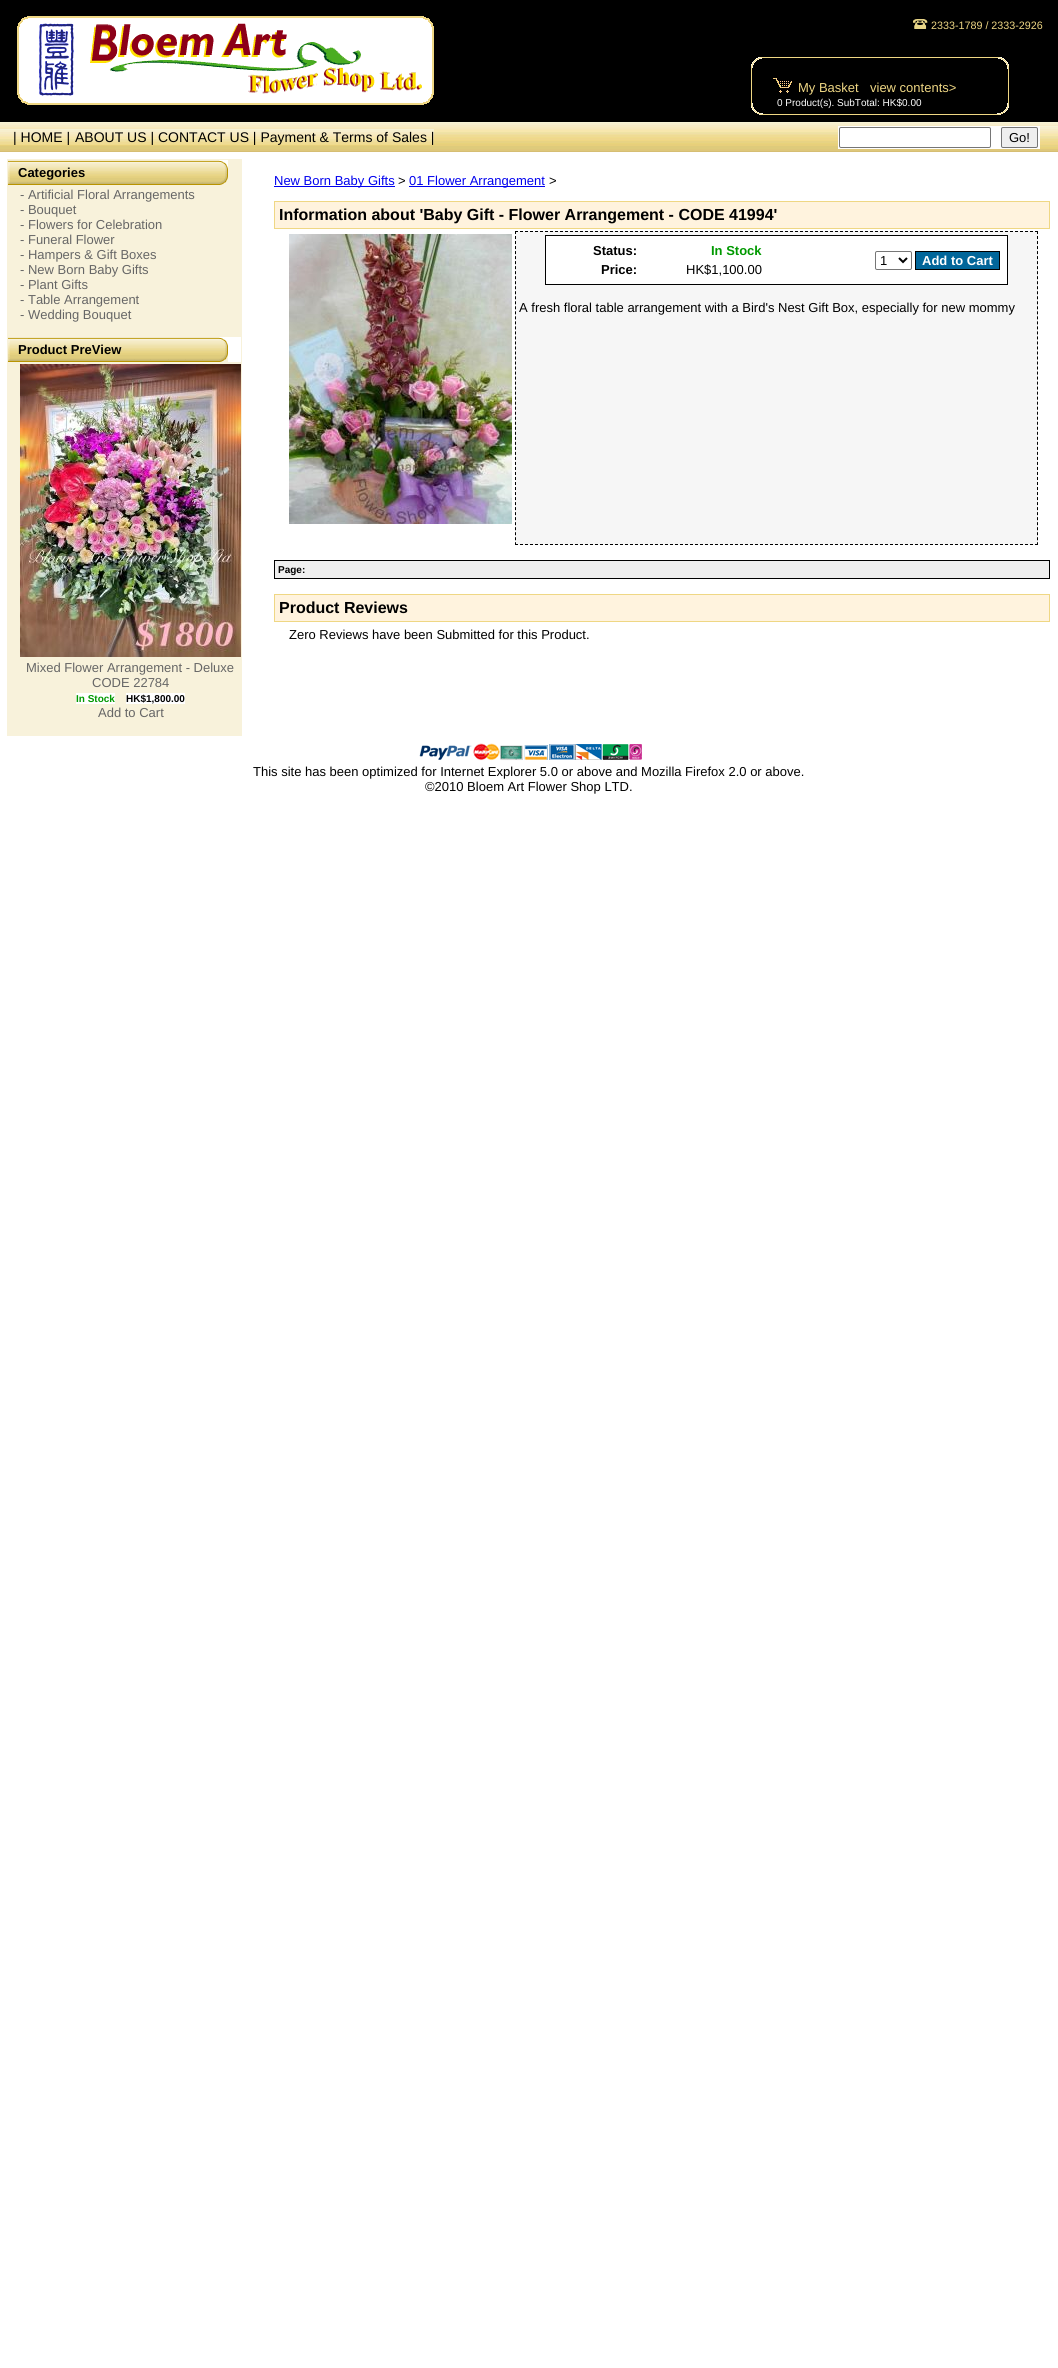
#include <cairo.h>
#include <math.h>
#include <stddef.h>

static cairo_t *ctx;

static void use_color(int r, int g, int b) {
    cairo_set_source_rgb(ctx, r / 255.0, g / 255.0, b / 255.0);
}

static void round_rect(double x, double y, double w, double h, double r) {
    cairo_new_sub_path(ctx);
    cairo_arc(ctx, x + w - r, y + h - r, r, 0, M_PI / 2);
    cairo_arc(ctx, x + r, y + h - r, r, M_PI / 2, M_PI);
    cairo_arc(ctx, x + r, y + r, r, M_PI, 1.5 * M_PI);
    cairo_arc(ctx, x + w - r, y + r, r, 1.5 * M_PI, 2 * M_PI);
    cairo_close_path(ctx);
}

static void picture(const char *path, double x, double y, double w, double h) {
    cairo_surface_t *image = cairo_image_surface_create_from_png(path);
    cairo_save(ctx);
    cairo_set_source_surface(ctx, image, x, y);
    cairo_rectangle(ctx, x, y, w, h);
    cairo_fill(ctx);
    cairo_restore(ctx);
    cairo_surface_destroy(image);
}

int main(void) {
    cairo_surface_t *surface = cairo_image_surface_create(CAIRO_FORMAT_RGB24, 1058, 2368);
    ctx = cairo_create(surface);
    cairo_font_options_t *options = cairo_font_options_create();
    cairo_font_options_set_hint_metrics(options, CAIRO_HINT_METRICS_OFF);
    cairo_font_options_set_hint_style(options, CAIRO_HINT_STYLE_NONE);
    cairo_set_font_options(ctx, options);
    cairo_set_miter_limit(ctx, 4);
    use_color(255, 255, 255);
    cairo_paint(ctx);
    use_color(0, 0, 0);
    cairo_rectangle(ctx, 0, 0, 1058, 122);
    cairo_fill(ctx);
    picture("img1.png", 17, 16, 417, 89);
    picture("img2.png", 751, 57, 258, 58);
    picture("img3.png", 913, 19, 15, 10);
    cairo_select_font_face(ctx, "Liberation Sans", CAIRO_FONT_SLANT_NORMAL, CAIRO_FONT_WEIGHT_NORMAL);
    cairo_set_font_size(ctx, 10.75);
    use_color(239, 215, 132);
    cairo_move_to(ctx, 931, 29);
    cairo_show_text(ctx, "2333-1789 / 2333-2926");
    picture("img4.png", 773, 78, 19, 15);
    cairo_set_font_size(ctx, 13);
    cairo_move_to(ctx, 798, 92);
    cairo_show_text(ctx, "My Basket");
    cairo_move_to(ctx, 870, 92);
    cairo_show_text(ctx, "view contents>");
    cairo_set_font_size(ctx, 10);
    use_color(255, 255, 255);
    cairo_move_to(ctx, 777, 106);
    cairo_show_text(ctx, "0 Product(s). SubTotal: HK$0.00");
    picture("img5.png", 0, 122, 703, 30);
    picture("img6.png", 0, 129, 70, 16);
    cairo_set_font_size(ctx, 14);
    use_color(0, 0, 0);
    cairo_move_to(ctx, 13, 142);
    cairo_show_text(ctx, "| HOME |");
    picture("img7.png", 70, 129, 364, 16);
    cairo_move_to(ctx, 75, 142);
    cairo_show_text(ctx, "ABOUT US | CONTACT US | Payment & Terms of Sales |");
    picture("img8.png", 703, 122, 355, 30);
    picture("img9.png", 1040, 126, 18, 23);
    use_color(255, 255, 255);
    cairo_rectangle(ctx, 838, 126, 202, 23);
    cairo_fill(ctx);
    round_rect(839.5, 127.5, 151, 20, 1.5);
    use_color(118, 118, 118);
    cairo_set_line_width(ctx, 1);
    cairo_stroke(ctx);
    use_color(239, 239, 239);
    round_rect(1001.5, 127.5, 36, 20, 1.5);
    cairo_fill_preserve(ctx);
    use_color(118, 118, 118);
    cairo_stroke(ctx);
    cairo_set_font_size(ctx, 13);
    use_color(0, 0, 0);
    cairo_move_to(ctx, 1009, 142);
    cairo_show_text(ctx, "Go!");
    use_color(248, 242, 219);
    cairo_rectangle(ctx, 7, 159, 235, 577);
    cairo_fill(ctx);
    picture("img10.png", 8, 160, 220, 25);
    cairo_select_font_face(ctx, "Liberation Sans", CAIRO_FONT_SLANT_NORMAL, CAIRO_FONT_WEIGHT_BOLD);
    use_color(0, 0, 0);
    cairo_move_to(ctx, 18, 177);
    cairo_show_text(ctx, "Categories");
    cairo_select_font_face(ctx, "Liberation Sans", CAIRO_FONT_SLANT_NORMAL, CAIRO_FONT_WEIGHT_NORMAL);
    use_color(102, 102, 102);
    cairo_move_to(ctx, 20, 199);
    cairo_show_text(ctx, "- Artificial Floral Arrangements");
    cairo_move_to(ctx, 20, 214);
    cairo_show_text(ctx, "- Bouquet");
    cairo_move_to(ctx, 20, 229);
    cairo_show_text(ctx, "- Flowers for Celebration");
    cairo_move_to(ctx, 20, 244);
    cairo_show_text(ctx, "- Funeral Flower");
    cairo_move_to(ctx, 20, 259);
    cairo_show_text(ctx, "- Hampers & Gift Boxes");
    cairo_move_to(ctx, 20, 274);
    cairo_show_text(ctx, "- New Born Baby Gifts");
    cairo_move_to(ctx, 20, 289);
    cairo_show_text(ctx, "- Plant Gifts");
    cairo_move_to(ctx, 20, 304);
    cairo_show_text(ctx, "- Table Arrangement");
    cairo_move_to(ctx, 20, 319);
    cairo_show_text(ctx, "- Wedding Bouquet");
    use_color(255, 255, 255);
    cairo_rectangle(ctx, 228, 337, 13, 25);
    cairo_fill(ctx);
    picture("img10.png", 8, 337, 220, 25);
    cairo_select_font_face(ctx, "Liberation Sans", CAIRO_FONT_SLANT_NORMAL, CAIRO_FONT_WEIGHT_BOLD);
    use_color(0, 0, 0);
    cairo_move_to(ctx, 18, 354);
    cairo_show_text(ctx, "Product PreView");
    picture("img11.png", 20, 364, 221, 293);
    cairo_select_font_face(ctx, "Liberation Sans", CAIRO_FONT_SLANT_NORMAL, CAIRO_FONT_WEIGHT_NORMAL);
    use_color(102, 102, 102);
    cairo_move_to(ctx, 26, 672);
    cairo_show_text(ctx, "Mixed Flower Arrangement - Deluxe");
    cairo_move_to(ctx, 92, 687);
    cairo_show_text(ctx, "CODE 22784");
    use_color(255, 255, 255);
    cairo_rectangle(ctx, 76, 693, 39, 11);
    cairo_fill(ctx);
    cairo_select_font_face(ctx, "Liberation Sans", CAIRO_FONT_SLANT_NORMAL, CAIRO_FONT_WEIGHT_BOLD);
    cairo_set_font_size(ctx, 10);
    use_color(0, 153, 0);
    cairo_move_to(ctx, 76, 702);
    cairo_show_text(ctx, "In Stock");
    use_color(255, 255, 255);
    cairo_rectangle(ctx, 126, 693, 59, 11);
    cairo_fill(ctx);
    use_color(0, 0, 0);
    cairo_move_to(ctx, 126, 702);
    cairo_show_text(ctx, "HK$1,800.00");
    cairo_select_font_face(ctx, "Liberation Sans", CAIRO_FONT_SLANT_NORMAL, CAIRO_FONT_WEIGHT_NORMAL);
    cairo_set_font_size(ctx, 13);
    use_color(102, 102, 102);
    cairo_move_to(ctx, 98, 717);
    cairo_show_text(ctx, "Add to Cart");
    use_color(0, 0, 238);
    cairo_rectangle(ctx, 274, 186, 121, 1);
    cairo_fill(ctx);
    cairo_move_to(ctx, 274, 185);
    cairo_show_text(ctx, "New Born Baby Gifts");
    use_color(0, 0, 0);
    cairo_move_to(ctx, 398, 185);
    cairo_show_text(ctx, ">");
    use_color(0, 0, 238);
    cairo_rectangle(ctx, 409, 186, 136, 1);
    cairo_fill(ctx);
    cairo_move_to(ctx, 409, 185);
    cairo_show_text(ctx, "01 Flower Arrangement");
    use_color(0, 0, 0);
    cairo_move_to(ctx, 549, 185);
    cairo_show_text(ctx, ">");
    use_color(255, 243, 222);
    cairo_rectangle(ctx, 274.5, 201.5, 775, 27);
    cairo_fill_preserve(ctx);
    use_color(239, 215, 132);
    cairo_stroke(ctx);
    cairo_select_font_face(ctx, "Liberation Sans", CAIRO_FONT_SLANT_NORMAL, CAIRO_FONT_WEIGHT_BOLD);
    cairo_set_font_size(ctx, 16);
    use_color(0, 0, 0);
    cairo_move_to(ctx, 279, 220);
    cairo_show_text(ctx, "Information about 'Baby Gift - Flower Arrangement - CODE 41994'");
    picture("img12.png", 289, 234, 223, 290);
    use_color(246, 246, 246);
    cairo_rectangle(ctx, 515, 231, 523, 314);
    cairo_fill(ctx);
    cairo_new_path(ctx);
    cairo_move_to(ctx, 515, 231.5);
    cairo_line_to(ctx, 1038, 231.5);
    use_color(0, 0, 0);
    cairo_set_dash(ctx, (double[]){3, 2}, 2, 0);
    cairo_stroke(ctx);
    cairo_new_path(ctx);
    cairo_move_to(ctx, 1037.5, 231);
    cairo_line_to(ctx, 1037.5, 545);
    cairo_set_dash(ctx, (double[]){3, 2.02}, 2, 0);
    cairo_stroke(ctx);
    cairo_new_path(ctx);
    cairo_move_to(ctx, 515, 544.5);
    cairo_line_to(ctx, 1038, 544.5);
    cairo_set_dash(ctx, (double[]){3, 2}, 2, 0);
    cairo_stroke(ctx);
    cairo_new_path(ctx);
    cairo_move_to(ctx, 515.5, 231);
    cairo_line_to(ctx, 515.5, 545);
    cairo_set_dash(ctx, (double[]){3, 2.02}, 2, 0);
    cairo_stroke(ctx);
    use_color(255, 255, 255);
    cairo_rectangle(ctx, 545.5, 235.5, 462, 49);
    cairo_fill_preserve(ctx);
    use_color(0, 0, 0);
    cairo_set_dash(ctx, NULL, 0, 0);
    cairo_stroke(ctx);
    cairo_set_font_size(ctx, 13);
    cairo_move_to(ctx, 593, 255);
    cairo_show_text(ctx, "Status:");
    use_color(0, 153, 0);
    cairo_move_to(ctx, 711, 255);
    cairo_show_text(ctx, "In Stock");
    round_rect(875.5, 251.5, 36, 18, 1.5);
    use_color(118, 118, 118);
    cairo_stroke(ctx);
    cairo_new_path(ctx);
    cairo_move_to(ctx, 899, 258);
    cairo_line_to(ctx, 903, 262);
    cairo_line_to(ctx, 907, 258);
    use_color(0, 0, 0);
    cairo_set_line_width(ctx, 2);
    cairo_stroke(ctx);
    cairo_select_font_face(ctx, "Liberation Sans", CAIRO_FONT_SLANT_NORMAL, CAIRO_FONT_WEIGHT_NORMAL);
    cairo_move_to(ctx, 880, 265);
    cairo_show_text(ctx, "1");
    use_color(1, 102, 154);
    cairo_rectangle(ctx, 915.5, 251.5, 84, 18);
    cairo_fill_preserve(ctx);
    use_color(0, 0, 0);
    cairo_set_line_width(ctx, 1);
    cairo_stroke(ctx);
    cairo_select_font_face(ctx, "Liberation Sans", CAIRO_FONT_SLANT_NORMAL, CAIRO_FONT_WEIGHT_BOLD);
    use_color(255, 255, 255);
    cairo_move_to(ctx, 922, 265);
    cairo_show_text(ctx, "Add to Cart");
    use_color(0, 0, 0);
    cairo_move_to(ctx, 601, 274);
    cairo_show_text(ctx, "Price:");
    cairo_select_font_face(ctx, "Liberation Sans", CAIRO_FONT_SLANT_NORMAL, CAIRO_FONT_WEIGHT_NORMAL);
    cairo_move_to(ctx, 686, 274);
    cairo_show_text(ctx, "HK$1,100.00");
    cairo_move_to(ctx, 519, 312);
    cairo_show_text(ctx, "A fresh floral table arrangement with a Bird's Nest Gift Box, especially for new mommy");
    use_color(239, 239, 239);
    cairo_rectangle(ctx, 275, 561, 774, 17);
    cairo_fill(ctx);
    use_color(0, 0, 0);
    cairo_rectangle(ctx, 274, 560, 776, 1);
    cairo_fill(ctx);
    cairo_rectangle(ctx, 274, 578, 34, 1);
    cairo_fill(ctx);
    cairo_rectangle(ctx, 274, 560, 1, 19);
    cairo_fill(ctx);
    cairo_select_font_face(ctx, "Liberation Sans", CAIRO_FONT_SLANT_NORMAL, CAIRO_FONT_WEIGHT_BOLD);
    cairo_set_font_size(ctx, 10);
    cairo_move_to(ctx, 278, 573);
    cairo_show_text(ctx, "Page:");
    cairo_rectangle(ctx, 1049, 560, 1, 19);
    cairo_fill(ctx);
    cairo_rectangle(ctx, 308, 578, 742, 1);
    cairo_fill(ctx);
    use_color(255, 243, 222);
    cairo_rectangle(ctx, 274.5, 594.5, 775, 27);
    cairo_fill_preserve(ctx);
    use_color(239, 215, 132);
    cairo_stroke(ctx);
    cairo_set_font_size(ctx, 16);
    use_color(0, 0, 0);
    cairo_move_to(ctx, 279, 613);
    cairo_show_text(ctx, "Product Reviews");
    cairo_select_font_face(ctx, "Liberation Sans", CAIRO_FONT_SLANT_NORMAL, CAIRO_FONT_WEIGHT_NORMAL);
    cairo_set_font_size(ctx, 13);
    cairo_move_to(ctx, 289, 639);
    cairo_show_text(ctx, "Zero Reviews have been Submitted for this Product.");
    picture("img13.png", 419, 743, 223, 18);
    cairo_move_to(ctx, 253, 776);
    cairo_show_text(ctx, "This site has been optimized for Internet Explorer 5.0 or above and Mozilla Firefox 2.0 or above.");
    cairo_move_to(ctx, 425, 791);
    cairo_show_text(ctx, "©2010 Bloem Art Flower Shop LTD.");
    cairo_surface_write_to_png(surface, "result.png");
    cairo_font_options_destroy(options);
    cairo_destroy(ctx);
    cairo_surface_destroy(surface);
    return 0;
}
